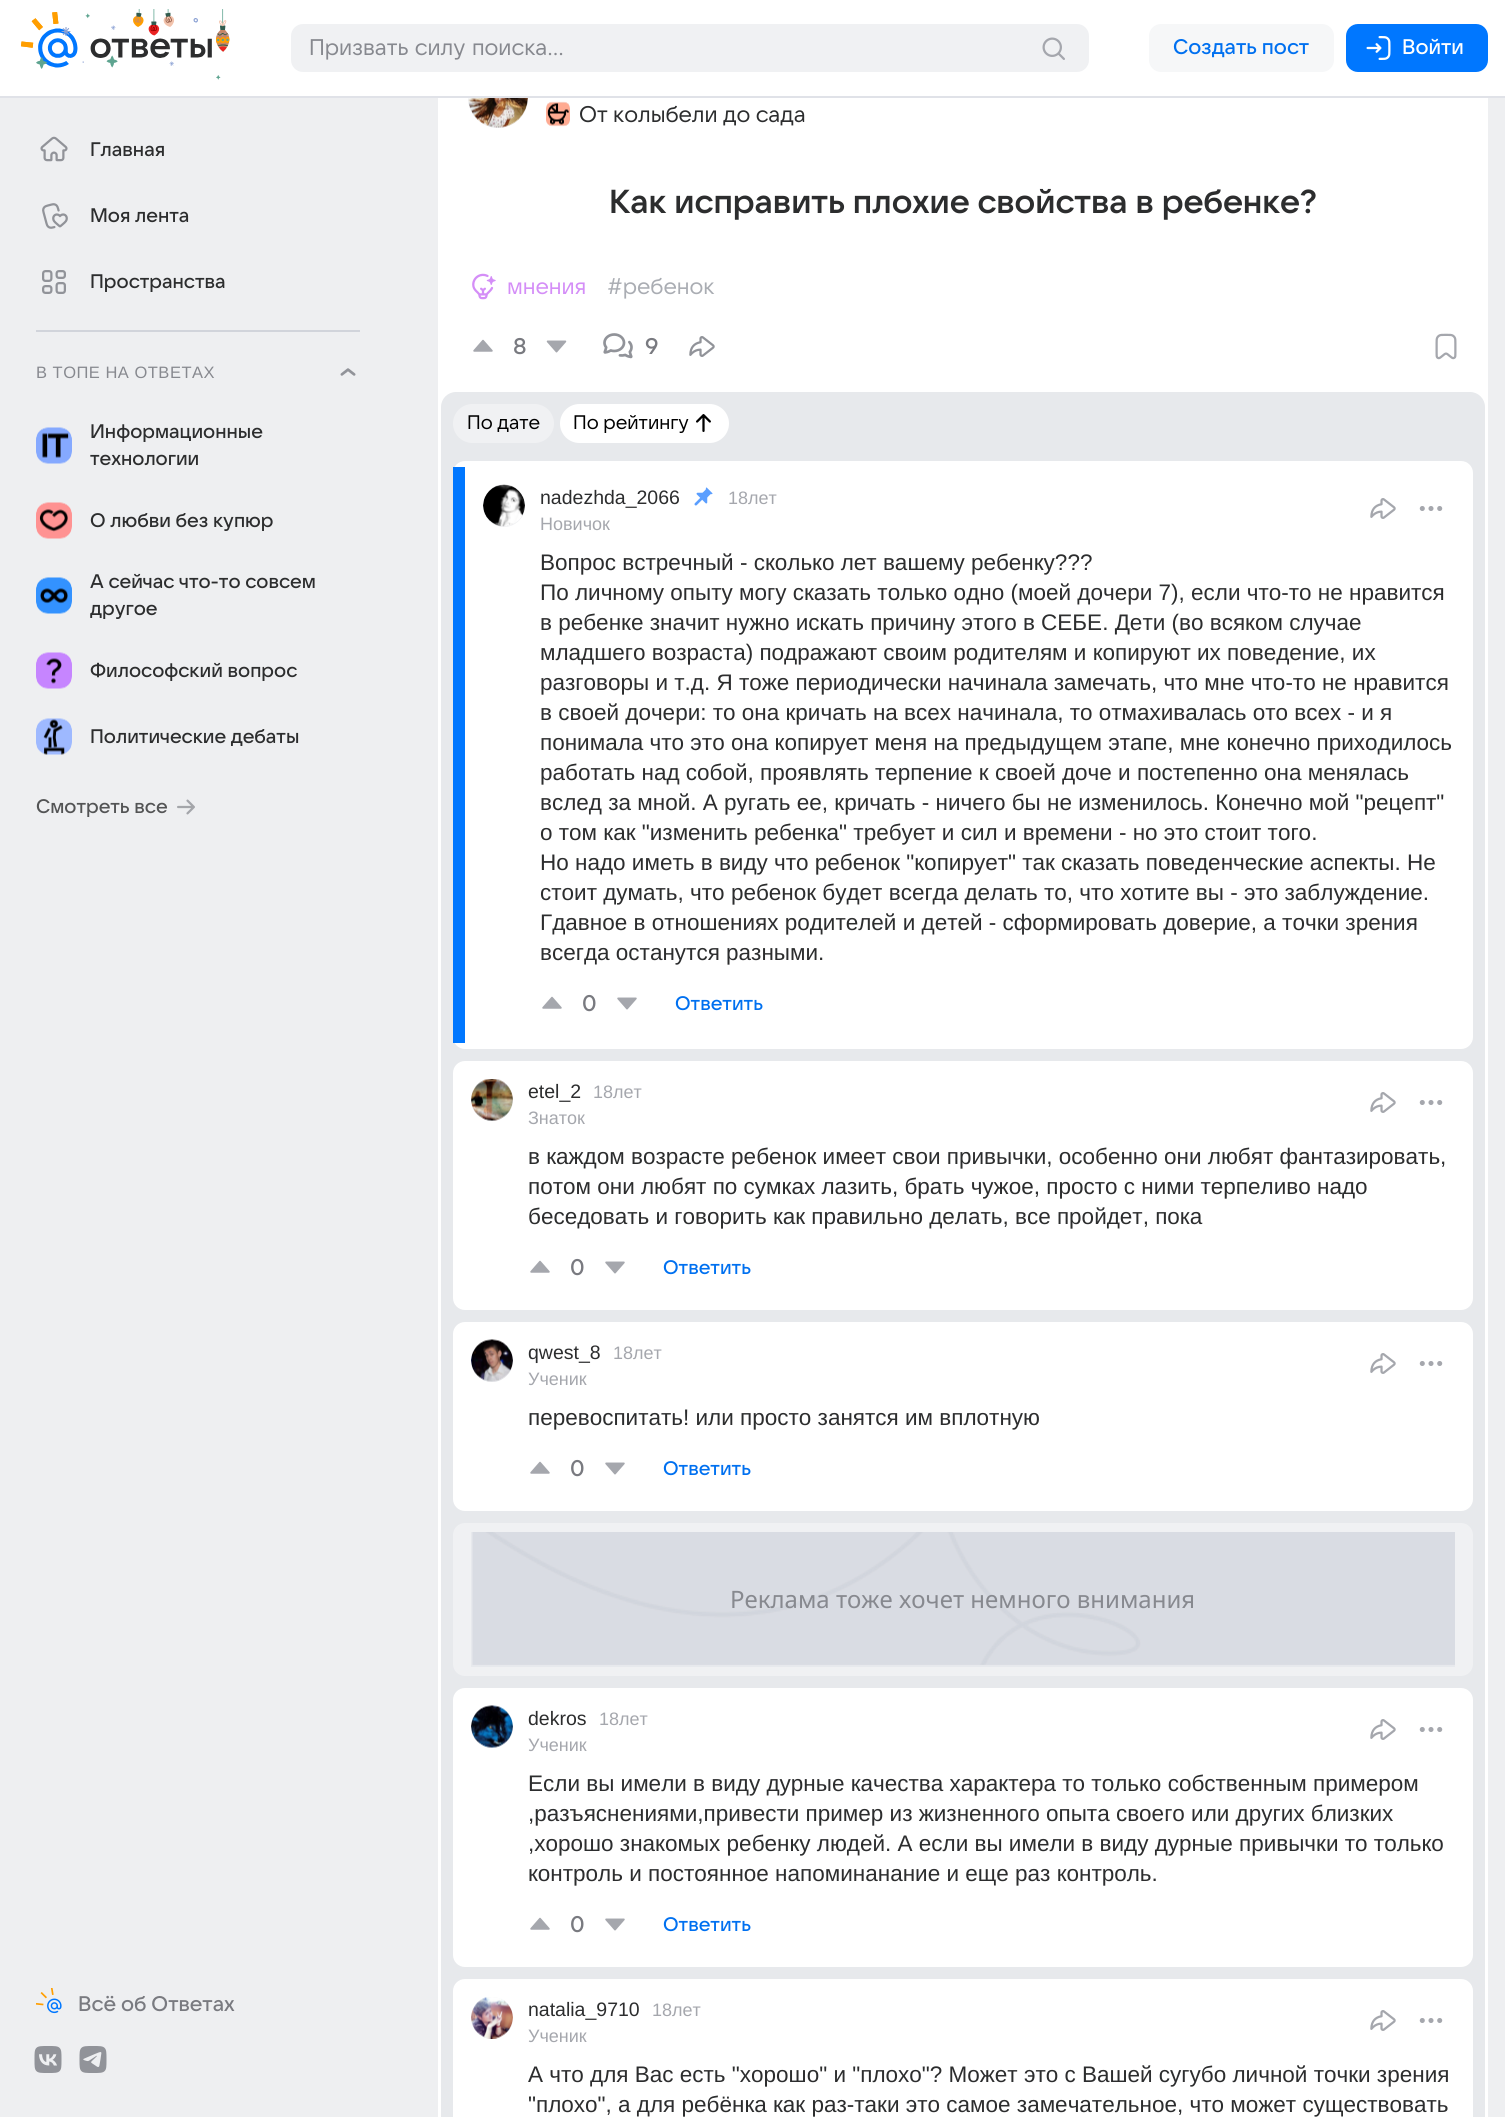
#include <cairo.h>
#include <math.h>
#include <stddef.h>

static cairo_t *ctx;

static void use_color(int r, int g, int b) {
    cairo_set_source_rgb(ctx, r / 255.0, g / 255.0, b / 255.0);
}

static void spaced_text(double x, double y, const char *s, double letter, double word) {
    cairo_move_to(ctx, x, y);
    while (*s) {
        char ch[5] = {0};
        int n = 0;
        do ch[n++] = *s++; while ((*s & 0xC0) == 0x80);
        cairo_show_text(ctx, ch);
        cairo_rel_move_to(ctx, letter + word * (*ch == ' '), 0);
    }
}

static void round_rect(double x, double y, double w, double h, double r) {
    cairo_new_sub_path(ctx);
    cairo_arc(ctx, x + w - r, y + h - r, r, 0, M_PI / 2);
    cairo_arc(ctx, x + r, y + h - r, r, M_PI / 2, M_PI);
    cairo_arc(ctx, x + r, y + r, r, M_PI, 1.5 * M_PI);
    cairo_arc(ctx, x + w - r, y + r, r, 1.5 * M_PI, 2 * M_PI);
    cairo_close_path(ctx);
}

static void picture(const char *path, double x, double y, double w, double h) {
    cairo_surface_t *image = cairo_image_surface_create_from_png(path);
    cairo_save(ctx);
    cairo_set_source_surface(ctx, image, x, y);
    cairo_rectangle(ctx, x, y, w, h);
    cairo_fill(ctx);
    cairo_restore(ctx);
    cairo_surface_destroy(image);
}

int main(void) {
    cairo_surface_t *surface = cairo_image_surface_create(CAIRO_FORMAT_RGB24, 1505, 2117);
    ctx = cairo_create(surface);
    cairo_font_options_t *options = cairo_font_options_create();
    cairo_font_options_set_hint_metrics(options, CAIRO_HINT_METRICS_OFF);
    cairo_font_options_set_hint_style(options, CAIRO_HINT_STYLE_NONE);
    cairo_set_font_options(ctx, options);
    cairo_set_miter_limit(ctx, 4);
    use_color(238, 239, 241);
    cairo_paint(ctx);
    use_color(255, 255, 255);
    cairo_rectangle(ctx, 438, 98, 1050, 2019);
    cairo_fill(ctx);
    use_color(240, 241, 243);
    cairo_arc(ctx, 498, 98, 30, 0, 2 * M_PI);
    cairo_fill(ctx);
    use_color(255, 255, 255);
    cairo_rectangle(ctx, 0, 0, 1505, 96);
    cairo_fill(ctx);
    use_color(224, 226, 232);
    cairo_rectangle(ctx, 0, 96, 1505, 2);
    cairo_fill(ctx);
    picture("img1.png", 21, 9, 209, 71);
    use_color(240, 241, 243);
    round_rect(291, 24, 798, 48, 12);
    cairo_fill(ctx);
    cairo_select_font_face(ctx, "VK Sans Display", CAIRO_FONT_SLANT_NORMAL, CAIRO_FONT_WEIGHT_NORMAL);
    cairo_set_font_size(ctx, 22.5);
    use_color(135, 137, 143);
    spaced_text(309, 55, "Призвать силу поиска...", 0, 1);
    picture("img2.png", 1042, 37, 23, 23);
    use_color(246, 247, 248);
    round_rect(1149, 24, 185, 48, 12);
    cairo_fill(ctx);
    cairo_select_font_face(ctx, "VK Sans Display Medium", CAIRO_FONT_SLANT_NORMAL, CAIRO_FONT_WEIGHT_NORMAL);
    cairo_set_font_size(ctx, 21);
    use_color(0, 112, 240);
    cairo_move_to(ctx, 1173, 54);
    cairo_show_text(ctx, "Создать пост");
    use_color(0, 119, 255);
    round_rect(1346, 24, 142, 48, 12);
    cairo_fill(ctx);
    picture("img3.png", 1366, 36, 25, 24);
    use_color(255, 255, 255);
    cairo_move_to(ctx, 1402, 54);
    cairo_show_text(ctx, "Войти");
    picture("img4.png", 40, 136, 28, 26);
    cairo_set_font_size(ctx, 19.5);
    use_color(44, 45, 46);
    cairo_move_to(ctx, 90, 156);
    cairo_show_text(ctx, "Главная");
    picture("img5.png", 42, 203, 26, 26);
    cairo_move_to(ctx, 90, 222);
    cairo_show_text(ctx, "Моя лента");
    picture("img6.png", 42, 270, 24, 24);
    cairo_move_to(ctx, 90, 288);
    cairo_show_text(ctx, "Пространства");
    use_color(209, 212, 219);
    cairo_rectangle(ctx, 36, 330, 324, 2);
    cairo_fill(ctx);
    cairo_select_font_face(ctx, "Liberation Sans", CAIRO_FONT_SLANT_NORMAL, CAIRO_FONT_WEIGHT_NORMAL);
    cairo_set_font_size(ctx, 16.5);
    use_color(135, 137, 143);
    spaced_text(36, 378, "В ТОПЕ НА ОТВЕТАХ", 0.5, 0);
    picture("img7.png", 340, 368, 16, 8);
    picture("img8.png", 36, 427, 36, 37);
    cairo_select_font_face(ctx, "VK Sans Display Medium", CAIRO_FONT_SLANT_NORMAL, CAIRO_FONT_WEIGHT_NORMAL);
    cairo_set_font_size(ctx, 19.5);
    use_color(44, 45, 46);
    cairo_move_to(ctx, 90, 438);
    cairo_show_text(ctx, "Информационные");
    cairo_move_to(ctx, 90, 465);
    cairo_show_text(ctx, "технологии");
    picture("img9.png", 36, 502, 36, 37);
    cairo_move_to(ctx, 90, 527);
    cairo_show_text(ctx, "О любви без купюр");
    picture("img10.png", 36, 577, 36, 37);
    cairo_move_to(ctx, 90, 588);
    cairo_show_text(ctx, "А сейчас что-то совсем");
    cairo_move_to(ctx, 90, 615);
    cairo_show_text(ctx, "другое");
    picture("img11.png", 36, 652, 36, 37);
    cairo_move_to(ctx, 90, 677);
    cairo_show_text(ctx, "Философский вопрос");
    picture("img12.png", 36, 718, 36, 37);
    cairo_move_to(ctx, 90, 743);
    cairo_show_text(ctx, "Политические дебаты");
    use_color(83, 84, 85);
    cairo_move_to(ctx, 36, 813);
    cairo_show_text(ctx, "Смотреть все");
    picture("img13.png", 177, 799, 18, 16);
    picture("img14.png", 36, 1988, 26, 26);
    cairo_set_font_size(ctx, 21);
    use_color(121, 122, 128);
    cairo_move_to(ctx, 78, 2011);
    cairo_show_text(ctx, "Всё об Ответах");
    picture("img15.png", 34, 2046, 28, 27);
    picture("img16.png", 79, 2046, 28, 27);
    picture("img17.png", 468, 98, 60, 30);
    use_color(240, 241, 243);
    round_rect(546, 102, 24, 24, 6);
    cairo_fill(ctx);
    picture("img18.png", 546, 101, 24, 26);
    cairo_select_font_face(ctx, "VK Sans Display", CAIRO_FONT_SLANT_NORMAL, CAIRO_FONT_WEIGHT_NORMAL);
    cairo_set_font_size(ctx, 22.5);
    use_color(44, 45, 46);
    cairo_move_to(ctx, 579, 122);
    cairo_show_text(ctx, "От колыбели до сада");
    cairo_select_font_face(ctx, "VK Sans Display SemiBold", CAIRO_FONT_SLANT_NORMAL, CAIRO_FONT_WEIGHT_NORMAL);
    cairo_set_font_size(ctx, 33);
    cairo_move_to(ctx, 609, 213);
    cairo_show_text(ctx, "Как исправить плохие свойства в ребенке?");
    picture("img19.png", 472, 273, 24, 27);
    cairo_select_font_face(ctx, "VK Sans Display", CAIRO_FONT_SLANT_NORMAL, CAIRO_FONT_WEIGHT_NORMAL);
    cairo_set_font_size(ctx, 22.5);
    use_color(212, 142, 247);
    cairo_move_to(ctx, 507, 294);
    cairo_show_text(ctx, "мнения");
    use_color(170, 173, 179);
    cairo_move_to(ctx, 607, 294);
    cairo_show_text(ctx, "#ребенок");
    picture("img20.png", 473, 339, 20, 13);
    cairo_select_font_face(ctx, "VK Sans Display Medium", CAIRO_FONT_SLANT_NORMAL, CAIRO_FONT_WEIGHT_NORMAL);
    use_color(121, 122, 128);
    cairo_move_to(ctx, 513, 354);
    cairo_show_text(ctx, "8");
    picture("img21.png", 546, 340, 21, 13);
    picture("img22.png", 603, 333, 30, 26);
    cairo_move_to(ctx, 645, 354);
    cairo_show_text(ctx, "9");
    picture("img23.png", 689, 336, 26, 21);
    picture("img24.png", 1435, 333, 22, 27);
    use_color(231, 233, 236);
    round_rect(441, 392, 1044, 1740, 15);
    cairo_fill(ctx);
    use_color(240, 241, 243);
    round_rect(453, 404, 101, 39, 19.5);
    cairo_fill(ctx);
    cairo_select_font_face(ctx, "VK Sans Display", CAIRO_FONT_SLANT_NORMAL, CAIRO_FONT_WEIGHT_NORMAL);
    cairo_set_font_size(ctx, 19.5);
    use_color(0, 0, 0);
    cairo_move_to(ctx, 467, 429);
    cairo_show_text(ctx, "По дате");
    use_color(255, 255, 255);
    round_rect(560, 404, 169, 39, 19.5);
    cairo_fill(ctx);
    use_color(0, 0, 0);
    cairo_move_to(ctx, 573, 429);
    cairo_show_text(ctx, "По рейтингу");
    picture("img25.png", 696, 414, 15, 18);
    use_color(255, 255, 255);
    round_rect(453, 461, 1020, 588, 12);
    cairo_fill(ctx);
    use_color(0, 119, 255);
    cairo_rectangle(ctx, 453, 467, 12, 576);
    cairo_fill(ctx);
    use_color(240, 241, 243);
    cairo_arc(ctx, 504, 506, 21, 0, 2 * M_PI);
    cairo_fill(ctx);
    picture("img26.png", 483, 484, 42, 43);
    cairo_select_font_face(ctx, "Liberation Sans", CAIRO_FONT_SLANT_NORMAL, CAIRO_FONT_WEIGHT_NORMAL);
    use_color(44, 45, 46);
    cairo_move_to(ctx, 540, 504);
    cairo_show_text(ctx, "nadezhda_2066");
    cairo_set_font_size(ctx, 18);
    use_color(165, 167, 173);
    cairo_move_to(ctx, 540, 530);
    cairo_show_text(ctx, "Новичок");
    picture("img27.png", 694, 487, 19, 19);
    cairo_move_to(ctx, 728, 504);
    cairo_show_text(ctx, "18лет");
    picture("img28.png", 1370, 498, 26, 21);
    picture("img29.png", 1419, 506, 24, 5);
    cairo_set_font_size(ctx, 22.5);
    use_color(44, 45, 46);
    cairo_move_to(ctx, 540, 570);
    cairo_show_text(ctx, "Вопрос встречный - сколько лет вашему ребенку?\077?");
    cairo_move_to(ctx, 540, 600);
    cairo_show_text(ctx, "По личному опыту могу сказать только одно (моей дочери 7), если что-то не нравится");
    cairo_move_to(ctx, 540, 630);
    cairo_show_text(ctx, "в ребенке значит нужно искать причину этого в СЕБЕ. Дети (во всяком случае");
    cairo_move_to(ctx, 540, 660);
    cairo_show_text(ctx, "младшего возраста) подражают своим родителям и копируют их поведение, их");
    cairo_move_to(ctx, 540, 690);
    cairo_show_text(ctx, "разговоры и т.д. Я тоже периодически начинала замечать, что мне что-то не нравится");
    cairo_move_to(ctx, 540, 720);
    cairo_show_text(ctx, "в своей дочери: то она кричать на всех начинала, то отмахивалась ото всех - и я");
    cairo_move_to(ctx, 540, 750);
    cairo_show_text(ctx, "понимала что это она копирует меня на предыдущем этапе, мне конечно приходилось");
    cairo_move_to(ctx, 540, 780);
    cairo_show_text(ctx, "работать над собой, проявлять терпение к своей доче и постепенно она менялась");
    cairo_move_to(ctx, 540, 810);
    cairo_show_text(ctx, "вслед за мной. А ругать ее, кричать - ничего бы не изменилось. Конечно мой \"рецепт\"");
    cairo_move_to(ctx, 540, 840);
    cairo_show_text(ctx, "о том как \"изменить ребенка\" требует и сил и времени - но это стоит того.");
    cairo_move_to(ctx, 540, 870);
    cairo_show_text(ctx, "Но надо иметь в виду что ребенок \"копирует\" так сказать поведенческие аспекты. Не");
    cairo_move_to(ctx, 540, 900);
    cairo_show_text(ctx, "стоит думать, что ребенок будет всегда делать то, что хотите вы - это заблуждение.");
    cairo_move_to(ctx, 540, 930);
    cairo_show_text(ctx, "Гдавное в отношениях родителей и детей - сформировать доверие, а точки зрения");
    cairo_move_to(ctx, 540, 960);
    cairo_show_text(ctx, "всегда останутся разными.");
    picture("img20.png", 542, 996, 20, 13);
    cairo_select_font_face(ctx, "VK Sans Display Medium", CAIRO_FONT_SLANT_NORMAL, CAIRO_FONT_WEIGHT_NORMAL);
    use_color(121, 122, 128);
    cairo_move_to(ctx, 582, 1011);
    cairo_show_text(ctx, "0");
    picture("img30.png", 617, 997, 20, 13);
    cairo_set_font_size(ctx, 19.5);
    use_color(0, 112, 240);
    cairo_move_to(ctx, 675, 1010);
    cairo_show_text(ctx, "Ответить");
    use_color(255, 255, 255);
    round_rect(453, 1061, 1020, 249, 12);
    cairo_fill(ctx);
    use_color(240, 241, 243);
    cairo_arc(ctx, 492, 1100, 21, 0, 2 * M_PI);
    cairo_fill(ctx);
    picture("img31.png", 471, 1079, 42, 42);
    cairo_select_font_face(ctx, "Liberation Sans", CAIRO_FONT_SLANT_NORMAL, CAIRO_FONT_WEIGHT_NORMAL);
    use_color(44, 45, 46);
    cairo_move_to(ctx, 528, 1098);
    cairo_show_text(ctx, "etel_2");
    cairo_set_font_size(ctx, 18);
    use_color(165, 167, 173);
    cairo_move_to(ctx, 528, 1124);
    cairo_show_text(ctx, "Знаток");
    cairo_move_to(ctx, 593, 1098);
    cairo_show_text(ctx, "18лет");
    picture("img28.png", 1370, 1092, 26, 21);
    picture("img29.png", 1419, 1100, 24, 5);
    cairo_set_font_size(ctx, 22.5);
    use_color(44, 45, 46);
    cairo_move_to(ctx, 528, 1164);
    cairo_show_text(ctx, "в каждом возрасте ребенок имеет свои привычки, особенно они любят фантазировать,");
    cairo_move_to(ctx, 528, 1194);
    cairo_show_text(ctx, "потом они любят по сумках лазить, брать чужое, просто с ними терпеливо надо");
    cairo_move_to(ctx, 528, 1224);
    cairo_show_text(ctx, "беседовать и говорить как правильно делать, все пройдет, пока");
    picture("img20.png", 530, 1260, 20, 13);
    cairo_select_font_face(ctx, "VK Sans Display Medium", CAIRO_FONT_SLANT_NORMAL, CAIRO_FONT_WEIGHT_NORMAL);
    use_color(121, 122, 128);
    cairo_move_to(ctx, 570, 1275);
    cairo_show_text(ctx, "0");
    picture("img30.png", 605, 1261, 20, 13);
    cairo_set_font_size(ctx, 19.5);
    use_color(0, 112, 240);
    cairo_move_to(ctx, 663, 1274);
    cairo_show_text(ctx, "Ответить");
    use_color(255, 255, 255);
    round_rect(453, 1322, 1020, 189, 12);
    cairo_fill(ctx);
    use_color(240, 241, 243);
    cairo_arc(ctx, 492, 1361, 21, 0, 2 * M_PI);
    cairo_fill(ctx);
    picture("img32.png", 471, 1339, 42, 43);
    cairo_select_font_face(ctx, "Liberation Sans", CAIRO_FONT_SLANT_NORMAL, CAIRO_FONT_WEIGHT_NORMAL);
    use_color(44, 45, 46);
    cairo_move_to(ctx, 528, 1359);
    cairo_show_text(ctx, "qwest_8");
    cairo_set_font_size(ctx, 18);
    use_color(165, 167, 173);
    cairo_move_to(ctx, 528, 1385);
    cairo_show_text(ctx, "Ученик");
    cairo_move_to(ctx, 613, 1359);
    cairo_show_text(ctx, "18лет");
    picture("img28.png", 1370, 1353, 26, 21);
    picture("img29.png", 1419, 1361, 24, 5);
    cairo_set_font_size(ctx, 22.5);
    use_color(44, 45, 46);
    cairo_move_to(ctx, 528, 1425);
    cairo_show_text(ctx, "перевоспитать! или просто занятся им вплотную");
    picture("img20.png", 530, 1461, 20, 13);
    cairo_select_font_face(ctx, "VK Sans Display Medium", CAIRO_FONT_SLANT_NORMAL, CAIRO_FONT_WEIGHT_NORMAL);
    use_color(121, 122, 128);
    cairo_move_to(ctx, 570, 1476);
    cairo_show_text(ctx, "0");
    picture("img30.png", 605, 1462, 20, 13);
    cairo_set_font_size(ctx, 19.5);
    use_color(0, 112, 240);
    cairo_move_to(ctx, 663, 1475);
    cairo_show_text(ctx, "Ответить");
    use_color(240, 241, 243);
    round_rect(453, 1523, 1020, 153, 12);
    cairo_fill(ctx);
    use_color(231, 233, 237);
    cairo_rectangle(ctx, 471, 1532, 984, 135);
    cairo_fill(ctx);
    picture("img33.png", 472, 1532, 983, 133);
    cairo_select_font_face(ctx, "Noto Sans", CAIRO_FONT_SLANT_NORMAL, CAIRO_FONT_WEIGHT_NORMAL);
    cairo_set_font_size(ctx, 24);
    use_color(135, 137, 143);
    cairo_move_to(ctx, 730, 1608);
    cairo_show_text(ctx, "Реклама тоже хочет немного внимания");
    use_color(255, 255, 255);
    round_rect(453, 1688, 1020, 279, 12);
    cairo_fill(ctx);
    use_color(240, 241, 243);
    cairo_arc(ctx, 492, 1727, 21, 0, 2 * M_PI);
    cairo_fill(ctx);
    picture("img34.png", 471, 1705, 42, 43);
    cairo_select_font_face(ctx, "Liberation Sans", CAIRO_FONT_SLANT_NORMAL, CAIRO_FONT_WEIGHT_NORMAL);
    cairo_set_font_size(ctx, 19.5);
    use_color(44, 45, 46);
    cairo_move_to(ctx, 528, 1725);
    cairo_show_text(ctx, "dekros");
    cairo_set_font_size(ctx, 18);
    use_color(165, 167, 173);
    cairo_move_to(ctx, 528, 1751);
    cairo_show_text(ctx, "Ученик");
    cairo_move_to(ctx, 599, 1725);
    cairo_show_text(ctx, "18лет");
    picture("img28.png", 1370, 1719, 26, 21);
    picture("img29.png", 1419, 1727, 24, 5);
    cairo_set_font_size(ctx, 22.5);
    use_color(44, 45, 46);
    cairo_move_to(ctx, 528, 1791);
    cairo_show_text(ctx, "Если вы имели в виду дурные качества характера то только собственным примером");
    cairo_move_to(ctx, 528, 1821);
    cairo_show_text(ctx, ",разъяснениями,привести пример из жизненного опыта своего или других близких");
    cairo_move_to(ctx, 528, 1851);
    cairo_show_text(ctx, ",хорошо знакомых ребенку людей. А если вы имели в виду дурные привычки то только");
    cairo_move_to(ctx, 528, 1881);
    cairo_show_text(ctx, "контроль и постоянное напоминанание и еще раз контроль.");
    picture("img20.png", 530, 1917, 20, 13);
    cairo_select_font_face(ctx, "VK Sans Display Medium", CAIRO_FONT_SLANT_NORMAL, CAIRO_FONT_WEIGHT_NORMAL);
    use_color(121, 122, 128);
    cairo_move_to(ctx, 570, 1932);
    cairo_show_text(ctx, "0");
    picture("img30.png", 605, 1918, 20, 13);
    cairo_set_font_size(ctx, 19.5);
    use_color(0, 112, 240);
    cairo_move_to(ctx, 663, 1931);
    cairo_show_text(ctx, "Ответить");
    use_color(255, 255, 255);
    round_rect(453, 1979, 1020, 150, 12);
    cairo_fill(ctx);
    use_color(240, 241, 243);
    cairo_arc(ctx, 492, 2018, 21, 0, 2 * M_PI);
    cairo_fill(ctx);
    picture("img35.png", 471, 1997, 42, 42);
    cairo_select_font_face(ctx, "Liberation Sans", CAIRO_FONT_SLANT_NORMAL, CAIRO_FONT_WEIGHT_NORMAL);
    use_color(44, 45, 46);
    cairo_move_to(ctx, 528, 2016);
    cairo_show_text(ctx, "natalia_9710");
    cairo_set_font_size(ctx, 18);
    use_color(165, 167, 173);
    cairo_move_to(ctx, 528, 2042);
    cairo_show_text(ctx, "Ученик");
    cairo_move_to(ctx, 652, 2016);
    cairo_show_text(ctx, "18лет");
    picture("img28.png", 1370, 2010, 26, 21);
    picture("img29.png", 1419, 2018, 24, 5);
    cairo_set_font_size(ctx, 22.5);
    use_color(44, 45, 46);
    cairo_move_to(ctx, 528, 2082);
    cairo_show_text(ctx, "А что для Вас есть \"хорошо\" и \"плохо\"? Может это с Вашей сугубо личной точки зрения");
    cairo_move_to(ctx, 528, 2112);
    cairo_show_text(ctx, "\"плохо\", а для ребёнка как раз-таки это самое замечательное, что может существовать");
    cairo_surface_write_to_png(surface, "result.png");
    cairo_font_options_destroy(options);
    cairo_destroy(ctx);
    cairo_surface_destroy(surface);
    return 0;
}
